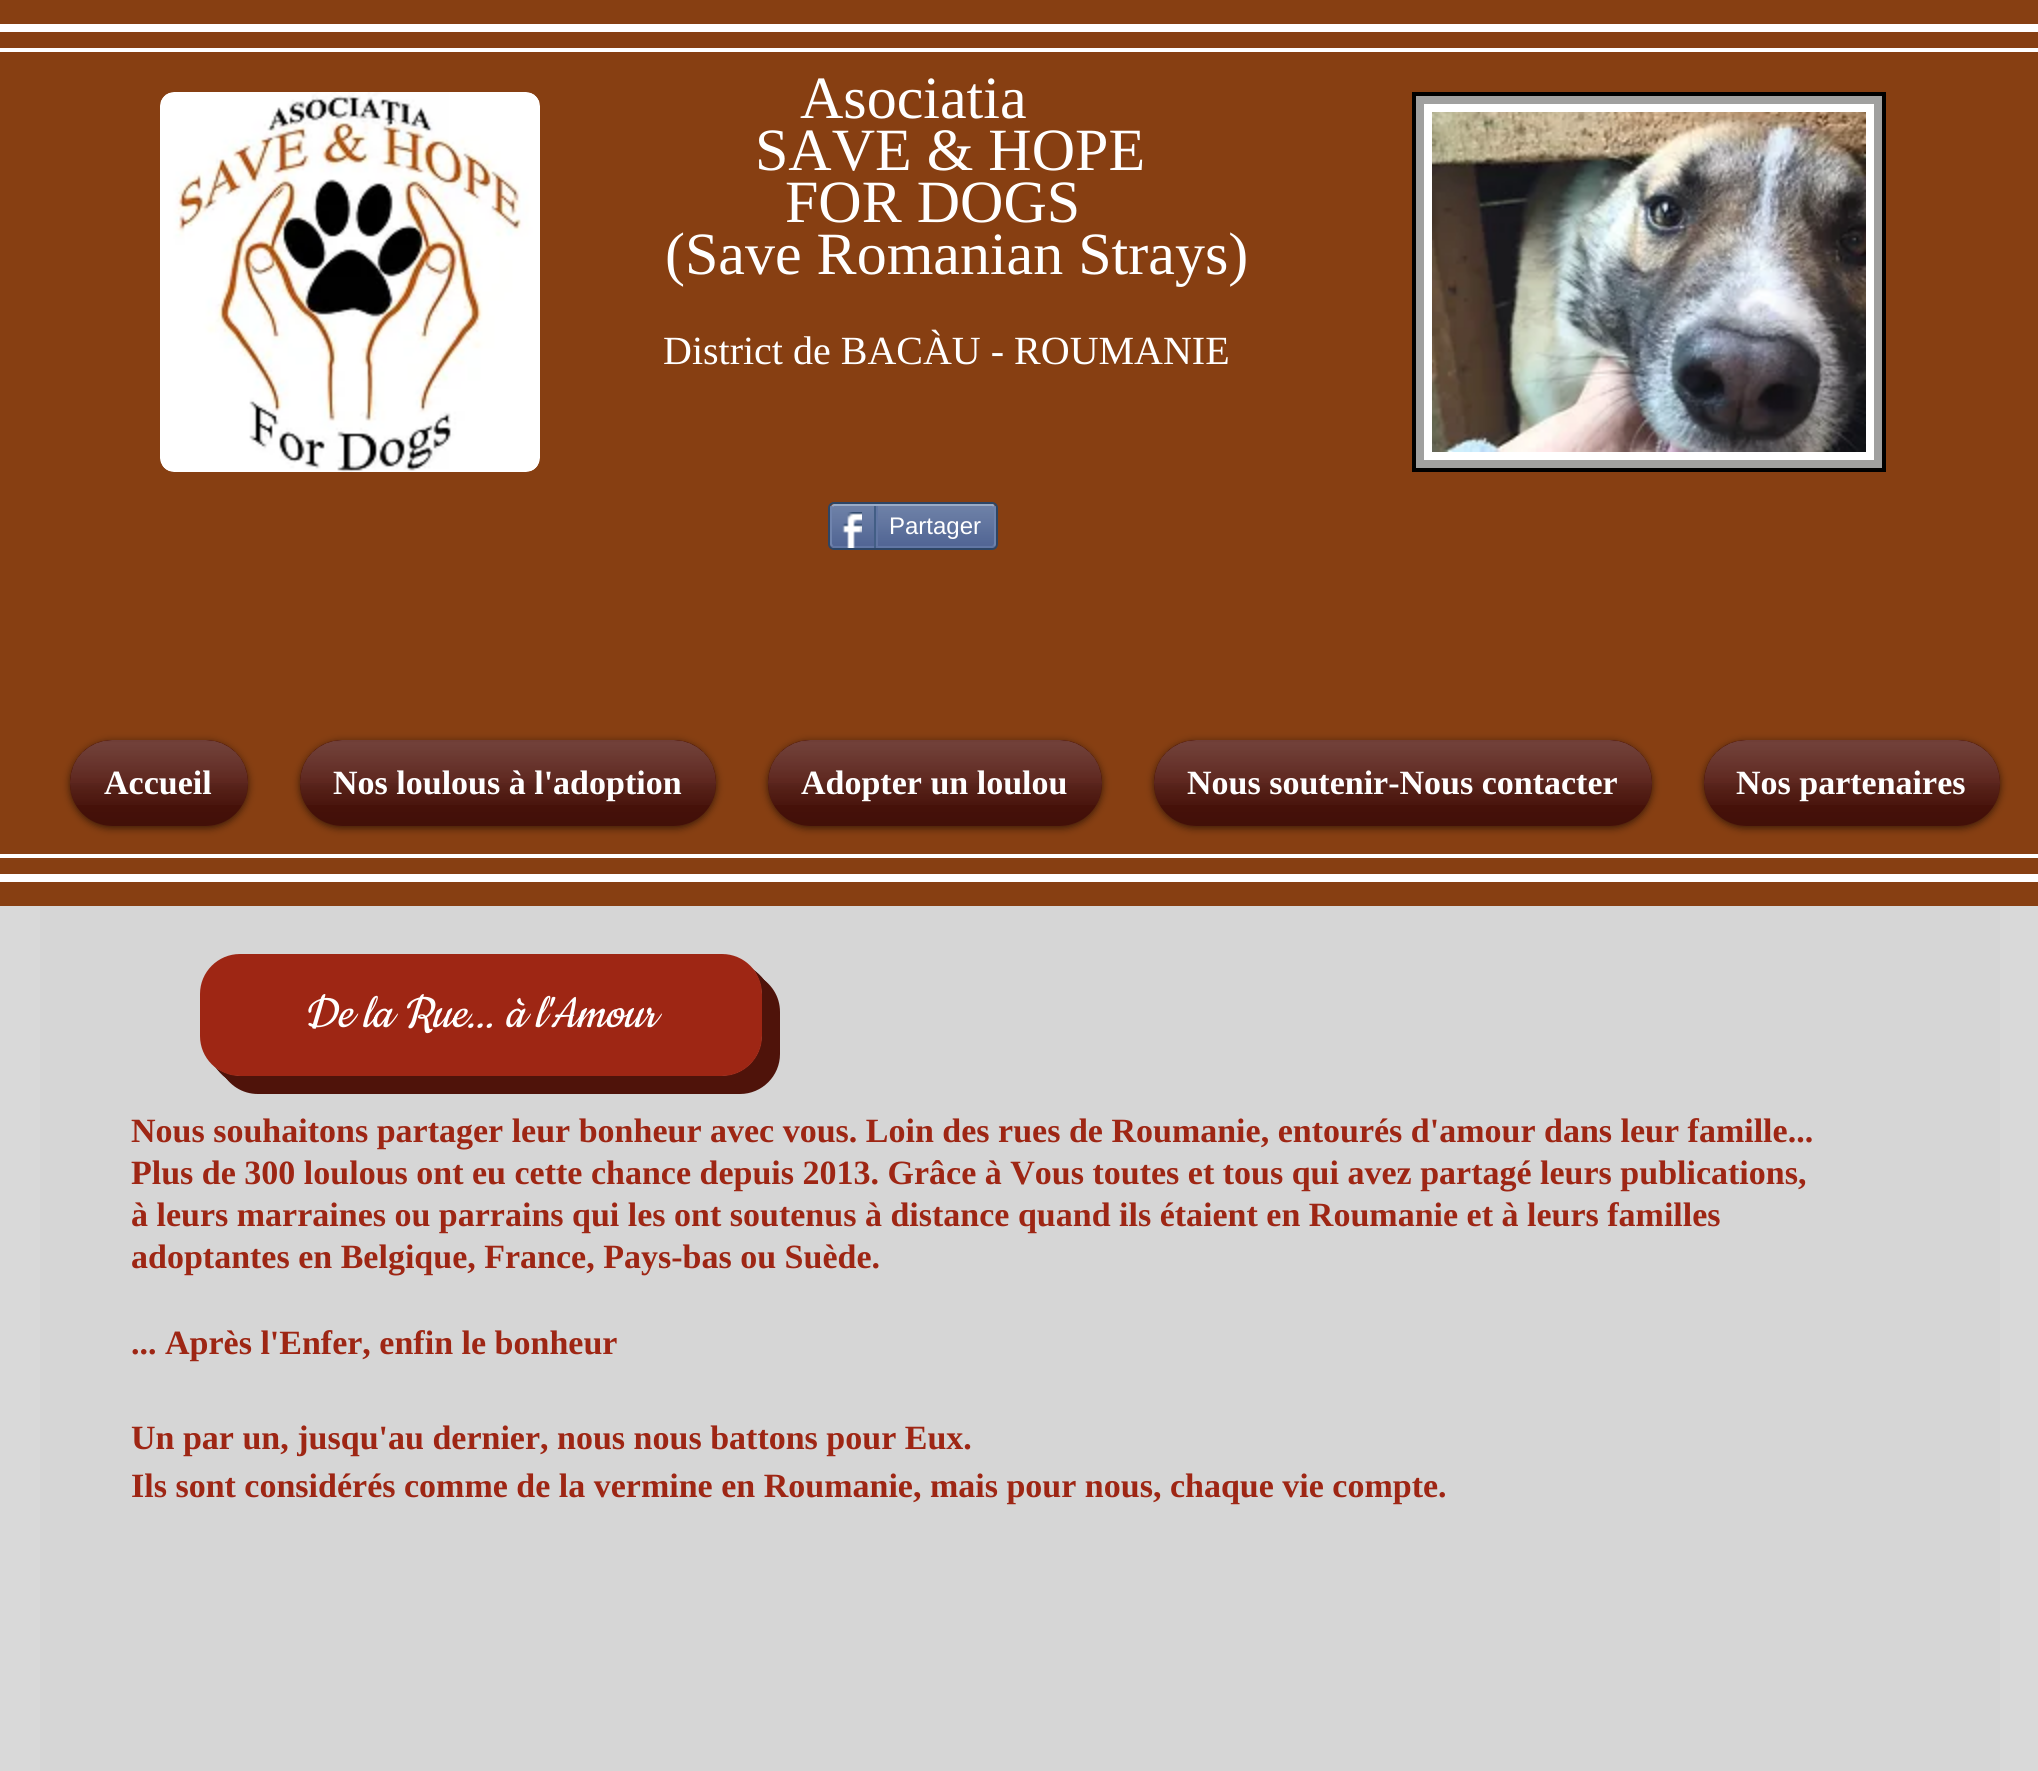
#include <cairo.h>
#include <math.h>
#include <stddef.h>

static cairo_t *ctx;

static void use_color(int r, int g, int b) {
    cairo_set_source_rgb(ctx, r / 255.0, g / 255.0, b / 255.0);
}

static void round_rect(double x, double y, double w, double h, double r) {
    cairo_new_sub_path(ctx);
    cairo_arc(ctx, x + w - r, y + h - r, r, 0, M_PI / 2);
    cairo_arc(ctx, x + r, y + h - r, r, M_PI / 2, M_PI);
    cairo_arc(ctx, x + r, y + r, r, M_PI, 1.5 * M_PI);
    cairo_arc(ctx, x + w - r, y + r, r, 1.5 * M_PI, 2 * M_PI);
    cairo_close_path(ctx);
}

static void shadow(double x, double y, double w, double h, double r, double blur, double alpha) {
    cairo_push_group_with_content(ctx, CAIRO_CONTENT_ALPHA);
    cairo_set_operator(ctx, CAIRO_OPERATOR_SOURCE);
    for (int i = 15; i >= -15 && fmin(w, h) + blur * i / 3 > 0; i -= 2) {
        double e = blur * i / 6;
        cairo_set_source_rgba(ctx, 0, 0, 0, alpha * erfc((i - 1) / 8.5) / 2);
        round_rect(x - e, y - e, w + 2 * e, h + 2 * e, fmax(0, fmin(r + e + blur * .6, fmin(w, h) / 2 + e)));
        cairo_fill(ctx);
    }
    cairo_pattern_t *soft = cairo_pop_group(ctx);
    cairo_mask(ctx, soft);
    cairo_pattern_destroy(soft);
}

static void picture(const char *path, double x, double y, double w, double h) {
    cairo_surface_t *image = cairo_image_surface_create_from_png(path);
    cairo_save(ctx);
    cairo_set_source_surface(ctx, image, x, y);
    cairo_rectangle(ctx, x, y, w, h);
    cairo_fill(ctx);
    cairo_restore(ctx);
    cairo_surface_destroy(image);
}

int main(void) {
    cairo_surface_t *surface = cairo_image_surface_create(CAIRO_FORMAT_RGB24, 2038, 1771);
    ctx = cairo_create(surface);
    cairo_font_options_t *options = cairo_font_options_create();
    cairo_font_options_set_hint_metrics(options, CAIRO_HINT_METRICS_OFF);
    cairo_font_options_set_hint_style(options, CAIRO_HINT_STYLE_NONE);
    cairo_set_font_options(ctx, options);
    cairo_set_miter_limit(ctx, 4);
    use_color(217, 217, 217);
    cairo_paint(ctx);
    use_color(135, 63, 18);
    cairo_rectangle(ctx, 0, 0, 2038, 906);
    cairo_fill(ctx);
    use_color(255, 255, 255);
    cairo_rectangle(ctx, 0, 24, 2038, 8);
    cairo_fill(ctx);
    cairo_rectangle(ctx, 0, 874, 2038, 8);
    cairo_fill(ctx);
    cairo_rectangle(ctx, 0, 48, 2038, 4);
    cairo_fill(ctx);
    cairo_rectangle(ctx, 0, 854, 2038, 4);
    cairo_fill(ctx);
    picture("img1.png", 160, 92, 380, 380);
    cairo_select_font_face(ctx, "Liberation Serif", CAIRO_FONT_SLANT_NORMAL, CAIRO_FONT_WEIGHT_NORMAL);
    cairo_set_font_size(ctx, 60);
    cairo_move_to(ctx, 800, 118);
    cairo_show_text(ctx, "Asociatia");
    cairo_move_to(ctx, 755, 170);
    cairo_show_text(ctx, "SAVE & HOPE");
    cairo_move_to(ctx, 785, 222);
    cairo_show_text(ctx, "FOR DOGS");
    cairo_move_to(ctx, 665, 274);
    cairo_show_text(ctx, "(Save Romanian Strays)");
    cairo_set_font_size(ctx, 40);
    cairo_move_to(ctx, 663, 364);
    cairo_show_text(ctx, "District de BACÀU - ROUMANIE");
    cairo_rectangle(ctx, 1424, 104, 450, 356);
    cairo_fill(ctx);
    cairo_rectangle(ctx, 1414, 94, 470, 376);
    use_color(0, 0, 0);
    cairo_set_line_width(ctx, 4);
    cairo_stroke(ctx);
    picture("img2.png", 1432, 112, 434, 340);
    cairo_rectangle(ctx, 1420, 100, 458, 364);
    use_color(160, 160, 159);
    cairo_set_line_width(ctx, 8);
    cairo_stroke(ctx);
    round_rect(829, 503, 168, 46, 5);
    use_color(45, 69, 101);
    cairo_set_line_width(ctx, 2);
    cairo_stroke(ctx);
    picture("img3.png", 830, 506, 166, 42);
    cairo_new_path(ctx);
    cairo_move_to(ctx, 832, 506);
    cairo_line_to(ctx, 834, 505);
    cairo_line_to(ctx, 992.5, 505);
    cairo_line_to(ctx, 994, 506);
    use_color(154, 171, 198);
    cairo_stroke(ctx);
    cairo_new_path(ctx);
    cairo_move_to(ctx, 994, 506);
    cairo_line_to(ctx, 995, 508);
    cairo_line_to(ctx, 995, 544);
    cairo_line_to(ctx, 994, 546);
    use_color(111, 131, 173);
    cairo_stroke(ctx);
    cairo_new_path(ctx);
    cairo_move_to(ctx, 994, 546);
    cairo_line_to(ctx, 992, 547);
    cairo_line_to(ctx, 833.5, 547);
    cairo_line_to(ctx, 832, 546);
    use_color(97, 118, 163);
    cairo_stroke(ctx);
    cairo_new_path(ctx);
    cairo_move_to(ctx, 832, 546);
    cairo_line_to(ctx, 831, 544);
    cairo_line_to(ctx, 831, 508);
    cairo_line_to(ctx, 832, 506);
    use_color(111, 131, 173);
    cairo_stroke(ctx);
    picture("img4.png", 842, 512, 20, 36);
    use_color(66, 94, 133);
    cairo_rectangle(ctx, 874, 506, 2, 42);
    cairo_fill(ctx);
    cairo_select_font_face(ctx, "Liberation Sans", CAIRO_FONT_SLANT_NORMAL, CAIRO_FONT_WEIGHT_NORMAL);
    cairo_set_font_size(ctx, 24);
    use_color(255, 255, 255);
    cairo_move_to(ctx, 889, 534);
    cairo_show_text(ctx, "Partager");
    use_color(97, 118, 163);
    cairo_rectangle(ctx, 876, 506, 2, 40);
    cairo_fill(ctx);
    use_color(0, 0, 0);
    shadow(70, 742, 178, 86, 42, 4, 0.6);
    use_color(79, 19, 10);
    round_rect(70, 740, 178, 86, 42);
    cairo_fill(ctx);
    picture("img5.png", 70, 740, 178, 65);
    picture("img6.png", 70, 783, 178, 43);
    cairo_select_font_face(ctx, "Liberation Serif", CAIRO_FONT_SLANT_NORMAL, CAIRO_FONT_WEIGHT_BOLD);
    cairo_set_font_size(ctx, 34);
    use_color(255, 255, 255);
    cairo_move_to(ctx, 104, 794);
    cairo_show_text(ctx, "Accueil");
    use_color(0, 0, 0);
    shadow(300, 742, 416, 86, 42, 4, 0.6);
    use_color(79, 19, 10);
    round_rect(300, 740, 416, 86, 42);
    cairo_fill(ctx);
    picture("img7.png", 300, 740, 416, 65);
    picture("img8.png", 300, 783, 416, 43);
    use_color(255, 255, 255);
    cairo_move_to(ctx, 333, 794);
    cairo_show_text(ctx, "Nos loulous à l'adoption");
    use_color(0, 0, 0);
    shadow(768, 742, 334, 86, 42, 4, 0.6);
    use_color(79, 19, 10);
    round_rect(768, 740, 334, 86, 42);
    cairo_fill(ctx);
    picture("img9.png", 768, 740, 334, 65);
    picture("img10.png", 768, 783, 334, 43);
    use_color(255, 255, 255);
    cairo_move_to(ctx, 801, 794);
    cairo_show_text(ctx, "Adopter un loulou");
    use_color(0, 0, 0);
    shadow(1154, 742, 498, 86, 42, 4, 0.6);
    use_color(79, 19, 10);
    round_rect(1154, 740, 498, 86, 42);
    cairo_fill(ctx);
    picture("img11.png", 1154, 740, 498, 65);
    picture("img12.png", 1154, 783, 498, 43);
    use_color(255, 255, 255);
    cairo_move_to(ctx, 1187, 794);
    cairo_show_text(ctx, "Nous soutenir-Nous contacter");
    use_color(0, 0, 0);
    shadow(1704, 742, 296, 86, 42, 4, 0.6);
    use_color(79, 19, 10);
    round_rect(1704, 740, 296, 86, 42);
    cairo_fill(ctx);
    picture("img13.png", 1704, 740, 296, 65);
    picture("img14.png", 1704, 783, 296, 43);
    use_color(255, 255, 255);
    cairo_move_to(ctx, 1736, 794);
    cairo_show_text(ctx, "Nos partenaires");
    use_color(214, 214, 214);
    cairo_rectangle(ctx, 40, 906, 1960, 865);
    cairo_fill(ctx);
    use_color(79, 19, 10);
    cairo_new_path(ctx);
    cairo_move_to(ctx, 222, 1072);
    cairo_curve_to(ctx, 229, 1085, 242, 1094, 258, 1094);
    cairo_line_to(ctx, 740, 1094);
    cairo_curve_to(ctx, 762, 1094, 780, 1076, 780, 1054);
    cairo_line_to(ctx, 780, 1012);
    cairo_curve_to(ctx, 780, 996, 771, 983, 758, 976);
    cairo_curve_to(ctx, 760, 982, 762, 988, 762, 994);
    cairo_line_to(ctx, 762, 1036);
    cairo_curve_to(ctx, 762, 1058, 744, 1076, 722, 1076);
    cairo_line_to(ctx, 240, 1076);
    cairo_curve_to(ctx, 234, 1076, 228, 1074, 222, 1072);
    cairo_close_path(ctx);
    cairo_fill(ctx);
    cairo_new_path(ctx);
    cairo_move_to(ctx, 220, 1070);
    cairo_curve_to(ctx, 227, 1082, 239, 1090, 254, 1090);
    cairo_line_to(ctx, 736, 1090);
    cairo_curve_to(ctx, 758, 1090, 776, 1072, 776, 1050);
    cairo_line_to(ctx, 776, 1008);
    cairo_curve_to(ctx, 776, 993, 768, 981, 756, 974);
    cairo_curve_to(ctx, 760, 980, 762, 987, 762, 994);
    cairo_line_to(ctx, 762, 1036);
    cairo_curve_to(ctx, 762, 1058, 744, 1076, 722, 1076);
    cairo_line_to(ctx, 240, 1076);
    cairo_curve_to(ctx, 233, 1076, 226, 1074, 220, 1070);
    cairo_close_path(ctx);
    cairo_fill(ctx);
    cairo_new_path(ctx);
    cairo_move_to(ctx, 217, 1069);
    cairo_curve_to(ctx, 224, 1079, 236, 1086, 250, 1086);
    cairo_line_to(ctx, 732, 1086);
    cairo_curve_to(ctx, 754, 1086, 772, 1068, 772, 1046);
    cairo_line_to(ctx, 772, 1004);
    cairo_curve_to(ctx, 772, 990, 765, 978, 755, 971);
    cairo_curve_to(ctx, 759, 978, 762, 986, 762, 994);
    cairo_line_to(ctx, 762, 1036);
    cairo_curve_to(ctx, 762, 1058, 744, 1076, 722, 1076);
    cairo_line_to(ctx, 240, 1076);
    cairo_curve_to(ctx, 232, 1076, 224, 1073, 217, 1069);
    cairo_close_path(ctx);
    cairo_fill(ctx);
    cairo_new_path(ctx);
    cairo_move_to(ctx, 215, 1067);
    cairo_curve_to(ctx, 222, 1076, 233, 1082, 246, 1082);
    cairo_line_to(ctx, 728, 1082);
    cairo_curve_to(ctx, 750, 1082, 768, 1064, 768, 1042);
    cairo_line_to(ctx, 768, 1000);
    cairo_curve_to(ctx, 768, 987, 762, 976, 753, 969);
    cairo_curve_to(ctx, 759, 976, 762, 984, 762, 994);
    cairo_line_to(ctx, 762, 1036);
    cairo_curve_to(ctx, 762, 1058, 744, 1076, 722, 1076);
    cairo_line_to(ctx, 240, 1076);
    cairo_curve_to(ctx, 230, 1076, 222, 1073, 215, 1067);
    cairo_close_path(ctx);
    cairo_fill(ctx);
    cairo_new_path(ctx);
    cairo_move_to(ctx, 213, 1065);
    cairo_curve_to(ctx, 220, 1073, 230, 1078, 242, 1078);
    cairo_line_to(ctx, 724, 1078);
    cairo_curve_to(ctx, 746, 1078, 764, 1060, 764, 1038);
    cairo_line_to(ctx, 764, 996);
    cairo_curve_to(ctx, 764, 984, 759, 974, 751, 967);
    cairo_curve_to(ctx, 758, 974, 762, 983, 762, 994);
    cairo_line_to(ctx, 762, 1036);
    cairo_curve_to(ctx, 762, 1058, 744, 1076, 722, 1076);
    cairo_line_to(ctx, 240, 1076);
    cairo_curve_to(ctx, 229, 1076, 220, 1072, 213, 1065);
    cairo_close_path(ctx);
    cairo_fill(ctx);
    use_color(158, 38, 20);
    round_rect(200, 954, 562, 122, 40);
    cairo_fill(ctx);
    cairo_select_font_face(ctx, "Cookie", CAIRO_FONT_SLANT_ITALIC, CAIRO_FONT_WEIGHT_NORMAL);
    cairo_set_font_size(ctx, 52);
    use_color(255, 255, 255);
    cairo_move_to(ctx, 303, 1027);
    cairo_show_text(ctx, "De la Rue... à l'Amour");
    cairo_select_font_face(ctx, "Liberation Serif", CAIRO_FONT_SLANT_NORMAL, CAIRO_FONT_WEIGHT_BOLD);
    cairo_set_font_size(ctx, 34);
    use_color(158, 38, 20);
    cairo_move_to(ctx, 131, 1142);
    cairo_show_text(ctx, "Nous souhaitons partager leur bonheur avec vous. Loin des rues de Roumanie, entourés d'amour dans leur famille...");
    cairo_move_to(ctx, 131, 1184);
    cairo_show_text(ctx, "Plus de 300 loulous ont eu cette chance depuis 2013. Grâce à Vous toutes et tous qui avez partagé leurs publications,");
    cairo_move_to(ctx, 131, 1226);
    cairo_show_text(ctx, "à leurs marraines ou parrains qui les ont soutenus à distance quand ils étaient en Roumanie et à leurs familles");
    cairo_move_to(ctx, 131, 1268);
    cairo_show_text(ctx, "adoptantes en Belgique, France, Pays-bas ou Suède.");
    cairo_move_to(ctx, 131, 1354);
    cairo_show_text(ctx, "... Après l'Enfer, enfin le bonheur");
    cairo_move_to(ctx, 131, 1449);
    cairo_show_text(ctx, "Un par un, jusqu'au dernier, nous nous battons pour Eux.");
    cairo_move_to(ctx, 131, 1497);
    cairo_show_text(ctx, "Ils sont considérés comme de la vermine en Roumanie, mais pour nous, chaque vie compte.");
    cairo_surface_write_to_png(surface, "result.png");
    cairo_font_options_destroy(options);
    cairo_destroy(ctx);
    cairo_surface_destroy(surface);
    return 0;
}
